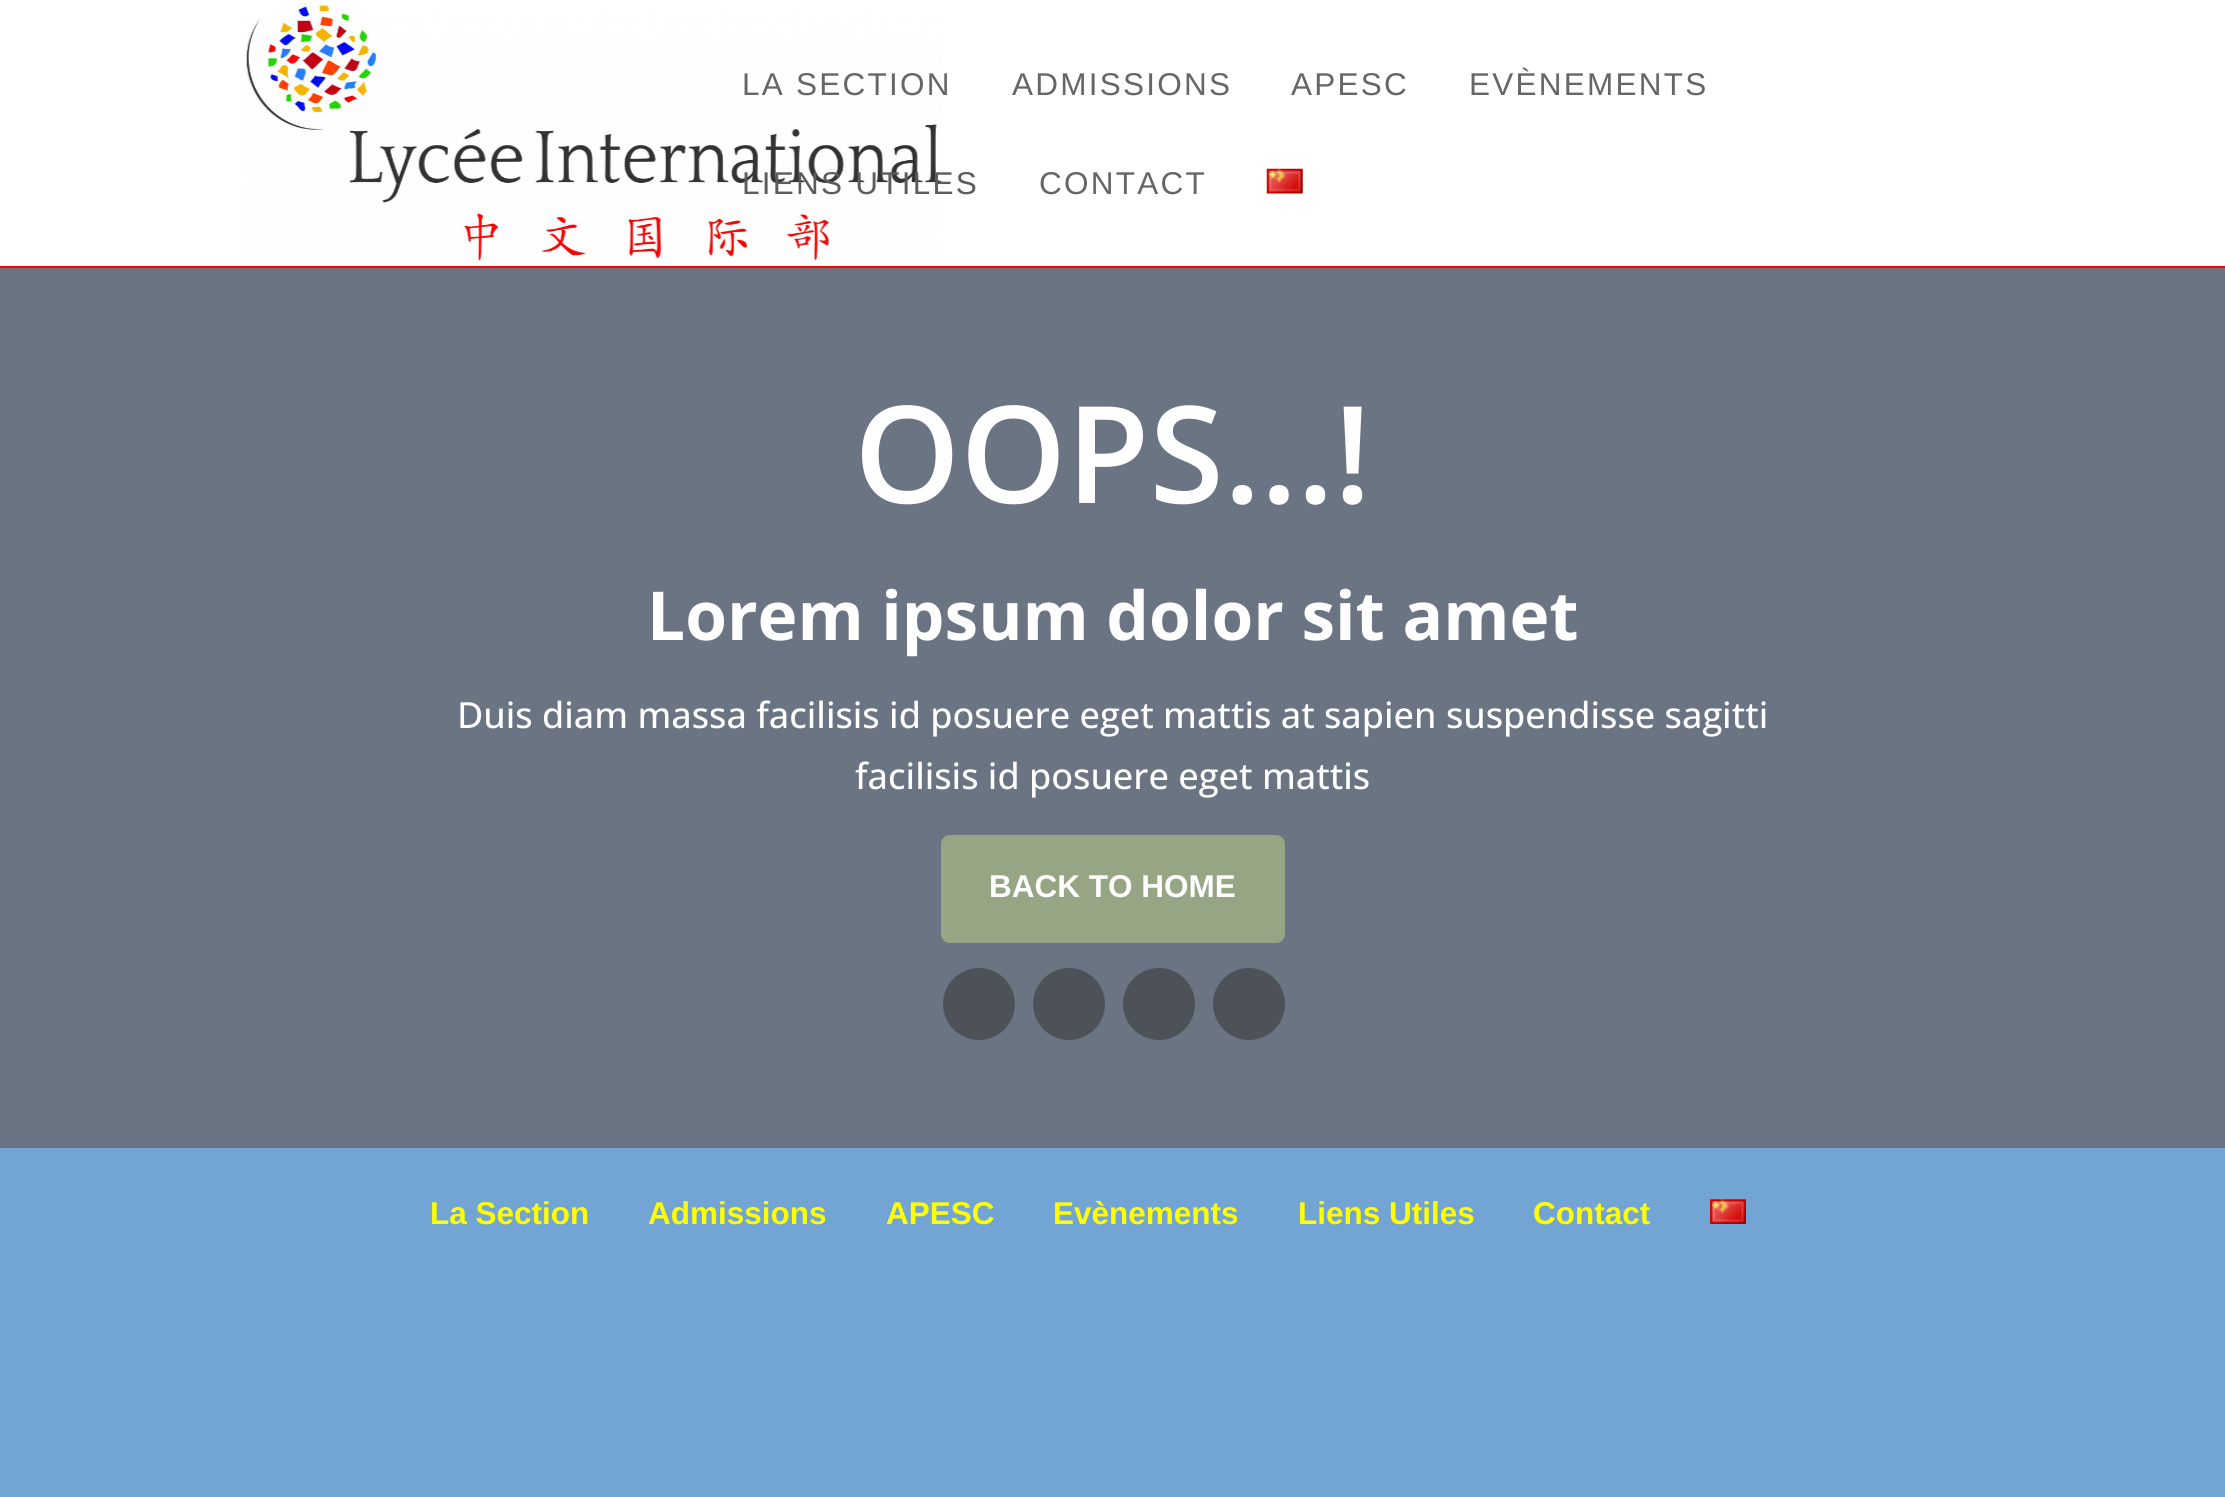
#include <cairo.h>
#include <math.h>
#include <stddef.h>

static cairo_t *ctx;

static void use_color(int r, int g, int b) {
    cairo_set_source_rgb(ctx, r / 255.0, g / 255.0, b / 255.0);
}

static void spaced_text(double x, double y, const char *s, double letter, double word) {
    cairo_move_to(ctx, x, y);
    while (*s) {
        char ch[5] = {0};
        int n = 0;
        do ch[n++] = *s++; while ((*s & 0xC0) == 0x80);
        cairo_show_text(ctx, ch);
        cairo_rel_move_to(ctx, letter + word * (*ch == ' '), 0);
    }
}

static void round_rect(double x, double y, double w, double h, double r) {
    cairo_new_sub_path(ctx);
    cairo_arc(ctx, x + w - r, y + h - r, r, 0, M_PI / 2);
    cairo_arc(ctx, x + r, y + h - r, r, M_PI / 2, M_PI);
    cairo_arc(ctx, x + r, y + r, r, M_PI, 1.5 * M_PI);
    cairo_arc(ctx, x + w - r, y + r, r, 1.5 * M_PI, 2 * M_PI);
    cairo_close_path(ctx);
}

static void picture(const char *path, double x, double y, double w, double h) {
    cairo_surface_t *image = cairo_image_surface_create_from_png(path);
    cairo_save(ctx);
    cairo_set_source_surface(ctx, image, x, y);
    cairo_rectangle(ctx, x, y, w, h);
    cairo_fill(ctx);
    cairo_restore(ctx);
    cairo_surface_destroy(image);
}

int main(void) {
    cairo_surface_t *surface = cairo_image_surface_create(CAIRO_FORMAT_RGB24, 2225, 1497);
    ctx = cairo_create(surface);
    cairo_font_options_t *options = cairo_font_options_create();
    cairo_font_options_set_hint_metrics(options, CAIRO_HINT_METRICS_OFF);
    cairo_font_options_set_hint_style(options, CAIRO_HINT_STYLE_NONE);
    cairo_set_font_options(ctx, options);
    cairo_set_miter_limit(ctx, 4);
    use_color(114, 164, 212);
    cairo_paint(ctx);
    use_color(255, 255, 255);
    cairo_rectangle(ctx, 0, 0, 2225, 266);
    cairo_fill(ctx);
    use_color(255, 0, 0);
    cairo_rectangle(ctx, 0, 266, 2225, 2);
    cairo_fill(ctx);
    picture("img1.png", 246, 4, 696, 259);
    cairo_select_font_face(ctx, "Liberation Sans", CAIRO_FONT_SLANT_NORMAL, CAIRO_FONT_WEIGHT_NORMAL);
    cairo_set_font_size(ctx, 31.5);
    use_color(102, 102, 102);
    spaced_text(742, 95, "LA SECTION", 2.25, 0);
    spaced_text(1012, 95, "ADMISSIONS", 2.25, 0);
    spaced_text(1291, 95, "APESC", 2.25, 0);
    spaced_text(1469, 95, "EVÈNEMENTS", 2.25, 0);
    use_color(92, 92, 92);
    spaced_text(742, 194, "LIENS UTILES", 2.25, 0);
    use_color(102, 102, 102);
    spaced_text(1039, 194, "CONTACT", 2.25, 0);
    picture("img2.png", 1266, 168, 37, 26);
    use_color(106, 116, 131);
    cairo_rectangle(ctx, 0, 268, 2225, 880);
    cairo_fill(ctx);
    cairo_select_font_face(ctx, "Open Sans SemiBold", CAIRO_FONT_SLANT_NORMAL, CAIRO_FONT_WEIGHT_NORMAL);
    cairo_set_font_size(ctx, 135);
    use_color(255, 255, 255);
    cairo_move_to(ctx, 854, 503);
    cairo_show_text(ctx, "OOPS…!");
    cairo_select_font_face(ctx, "Open Sans", CAIRO_FONT_SLANT_NORMAL, CAIRO_FONT_WEIGHT_BOLD);
    cairo_set_font_size(ctx, 67.5);
    cairo_move_to(ctx, 647, 640);
    cairo_show_text(ctx, "Lorem ipsum dolor sit amet");
    cairo_select_font_face(ctx, "Open Sans Medium", CAIRO_FONT_SLANT_NORMAL, CAIRO_FONT_WEIGHT_NORMAL);
    cairo_set_font_size(ctx, 36);
    cairo_move_to(ctx, 457, 728);
    cairo_show_text(ctx, "Duis diam massa facilisis id posuere eget mattis at sapien suspendisse sagitti");
    cairo_move_to(ctx, 855, 789);
    cairo_show_text(ctx, "facilisis id posuere eget mattis");
    use_color(150, 165, 132);
    round_rect(943.5, 837.5, 339, 103, 6.5);
    cairo_fill_preserve(ctx);
    cairo_set_line_width(ctx, 5);
    cairo_stroke(ctx);
    cairo_select_font_face(ctx, "Liberation Sans", CAIRO_FONT_SLANT_NORMAL, CAIRO_FONT_WEIGHT_BOLD);
    cairo_set_font_size(ctx, 31.5);
    use_color(255, 255, 255);
    cairo_move_to(ctx, 989, 897);
    cairo_show_text(ctx, "BACK TO HOME");
    use_color(77, 82, 89);
    cairo_new_path(ctx);
    cairo_arc(ctx, 979, 1004, 36, 0, 2 * M_PI);
    cairo_fill(ctx);
    cairo_arc(ctx, 1069, 1004, 36, 0, 2 * M_PI);
    cairo_fill(ctx);
    cairo_arc(ctx, 1159, 1004, 36, 0, 2 * M_PI);
    cairo_fill(ctx);
    cairo_arc(ctx, 1249, 1004, 36, 0, 2 * M_PI);
    cairo_fill(ctx);
    use_color(255, 255, 0);
    cairo_move_to(ctx, 430, 1224);
    cairo_show_text(ctx, "La Section");
    cairo_move_to(ctx, 648, 1224);
    cairo_show_text(ctx, "Admissions");
    cairo_move_to(ctx, 886, 1224);
    cairo_show_text(ctx, "APESC");
    cairo_move_to(ctx, 1053, 1224);
    cairo_show_text(ctx, "Evènements");
    cairo_move_to(ctx, 1298, 1224);
    cairo_show_text(ctx, "Liens Utiles");
    cairo_move_to(ctx, 1533, 1224);
    cairo_show_text(ctx, "Contact");
    picture("img3.png", 1710, 1199, 36, 25);
    cairo_surface_write_to_png(surface, "result.png");
    cairo_font_options_destroy(options);
    cairo_destroy(ctx);
    cairo_surface_destroy(surface);
    return 0;
}
